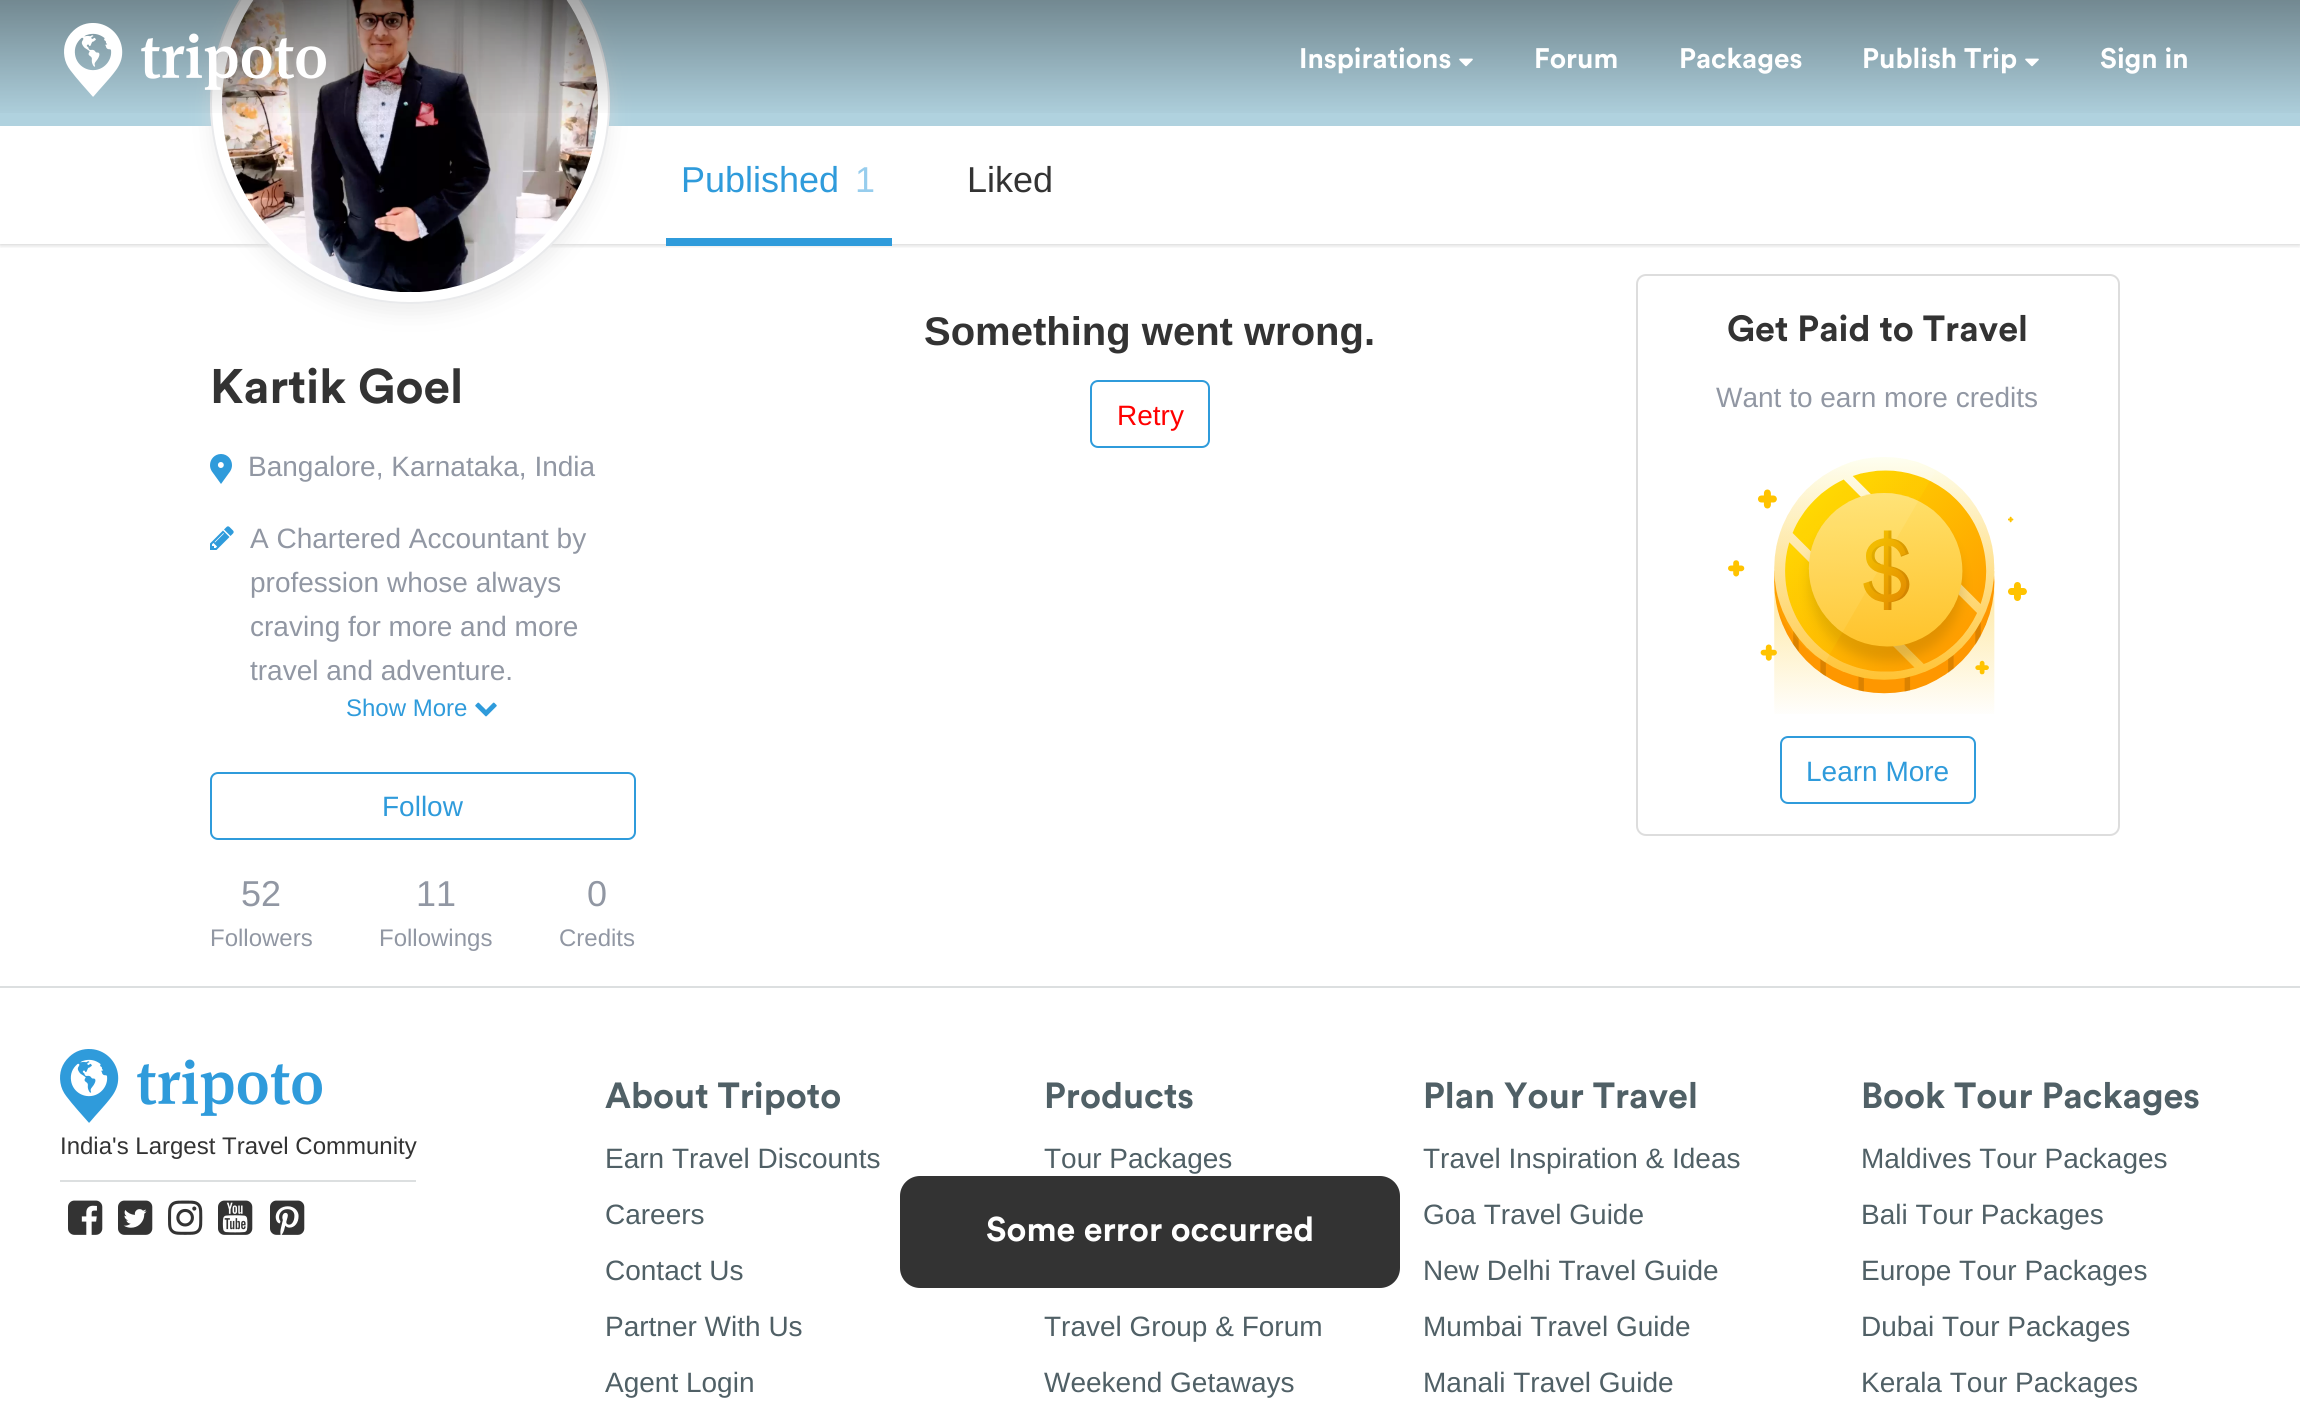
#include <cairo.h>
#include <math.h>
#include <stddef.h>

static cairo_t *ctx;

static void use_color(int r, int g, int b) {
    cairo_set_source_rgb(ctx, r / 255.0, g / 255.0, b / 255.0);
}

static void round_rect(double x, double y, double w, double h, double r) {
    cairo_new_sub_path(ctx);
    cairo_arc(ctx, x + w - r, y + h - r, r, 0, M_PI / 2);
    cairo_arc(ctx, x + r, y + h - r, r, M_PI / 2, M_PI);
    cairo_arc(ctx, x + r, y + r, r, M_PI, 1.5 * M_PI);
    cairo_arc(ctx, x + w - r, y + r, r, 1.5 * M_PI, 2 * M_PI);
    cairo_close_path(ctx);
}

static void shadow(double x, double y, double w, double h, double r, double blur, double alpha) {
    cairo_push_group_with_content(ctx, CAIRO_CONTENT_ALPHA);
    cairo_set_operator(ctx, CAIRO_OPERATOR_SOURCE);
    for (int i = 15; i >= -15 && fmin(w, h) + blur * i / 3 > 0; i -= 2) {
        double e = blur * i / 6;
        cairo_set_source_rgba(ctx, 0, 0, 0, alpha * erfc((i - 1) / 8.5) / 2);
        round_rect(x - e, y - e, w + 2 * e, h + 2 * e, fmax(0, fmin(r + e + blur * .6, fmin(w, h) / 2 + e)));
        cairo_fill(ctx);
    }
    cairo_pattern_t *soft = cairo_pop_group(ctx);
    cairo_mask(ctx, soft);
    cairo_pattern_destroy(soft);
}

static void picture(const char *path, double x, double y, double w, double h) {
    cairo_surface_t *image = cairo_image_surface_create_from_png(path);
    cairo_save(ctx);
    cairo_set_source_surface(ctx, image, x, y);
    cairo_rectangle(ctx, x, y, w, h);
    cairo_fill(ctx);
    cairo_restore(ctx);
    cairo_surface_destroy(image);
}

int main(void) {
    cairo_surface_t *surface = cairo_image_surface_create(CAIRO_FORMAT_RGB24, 2300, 1403);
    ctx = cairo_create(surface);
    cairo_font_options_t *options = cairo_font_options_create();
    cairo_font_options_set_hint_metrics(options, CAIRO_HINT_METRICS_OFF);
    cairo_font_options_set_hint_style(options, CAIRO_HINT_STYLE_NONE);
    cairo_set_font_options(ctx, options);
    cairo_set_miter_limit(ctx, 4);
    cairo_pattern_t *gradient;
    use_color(255, 255, 255);
    cairo_paint(ctx);
    cairo_save(ctx);
    cairo_rectangle(ctx, 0, 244, 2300, 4);
    cairo_clip(ctx);
    use_color(0, 0, 0);
    shadow(0, 126, 2300, 118, 0, 3, 0.25);
    cairo_restore(ctx);
    use_color(176, 210, 223);
    cairo_rectangle(ctx, 0, 0, 2300, 126);
    cairo_fill(ctx);
    use_color(221, 221, 221);
    shadow(210, -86, 400, 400, 200, 10, 0.5);
    use_color(255, 255, 255);
    cairo_arc(ctx, 410, 104, 200, 0, 2 * M_PI);
    cairo_fill(ctx);
    cairo_arc(ctx, 410, 104, 199, 0, 2 * M_PI);
    cairo_set_source_rgba(ctx, 0.569, 0.592, 0.639, 0.2);
    cairo_stroke(ctx);
    picture("img3.png", 222, 0, 376, 292);
    gradient = cairo_pattern_create_linear(1150, 0, 1150, 120);
    cairo_pattern_add_color_stop_rgba(gradient, 0, 0, 0, 0, 0.35);
    cairo_pattern_add_color_stop_rgba(gradient, 1, 0, 0, 0, 0);
    cairo_set_source(ctx, gradient);
    cairo_pattern_destroy(gradient);
    cairo_rectangle(ctx, 0, 0, 2300, 113);
    cairo_fill(ctx);
    picture("img1.png", 64, 23, 262, 74);
    cairo_select_font_face(ctx, "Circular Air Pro", CAIRO_FONT_SLANT_NORMAL, CAIRO_FONT_WEIGHT_BOLD);
    cairo_set_font_size(ctx, 28);
    use_color(255, 255, 255);
    cairo_move_to(ctx, 1299, 68);
    cairo_show_text(ctx, "Inspirations");
    picture("img2.png", 1459, 58, 14, 9);
    cairo_move_to(ctx, 1534, 68);
    cairo_show_text(ctx, "Forum");
    cairo_move_to(ctx, 1679, 68);
    cairo_show_text(ctx, "Packages");
    cairo_move_to(ctx, 1862, 68);
    cairo_show_text(ctx, "Publish Trip");
    picture("img2.png", 2025, 58, 14, 9);
    cairo_move_to(ctx, 2100, 68);
    cairo_show_text(ctx, "Sign in");
    use_color(47, 155, 219);
    cairo_rectangle(ctx, 666, 238, 226, 8);
    cairo_fill(ctx);
    cairo_select_font_face(ctx, "Liberation Sans", CAIRO_FONT_SLANT_NORMAL, CAIRO_FONT_WEIGHT_NORMAL);
    cairo_set_font_size(ctx, 36);
    cairo_move_to(ctx, 681, 192);
    cairo_show_text(ctx, "Published");
    use_color(151, 205, 237);
    cairo_move_to(ctx, 855, 192);
    cairo_show_text(ctx, "1");
    use_color(51, 51, 51);
    cairo_move_to(ctx, 967, 192);
    cairo_show_text(ctx, "Liked");
    cairo_select_font_face(ctx, "Circular Air Pro", CAIRO_FONT_SLANT_NORMAL, CAIRO_FONT_WEIGHT_BOLD);
    cairo_set_font_size(ctx, 48);
    cairo_move_to(ctx, 210, 403);
    cairo_show_text(ctx, "Kartik Goel");
    picture("img4.png", 210, 454, 22, 30);
    cairo_select_font_face(ctx, "Liberation Sans", CAIRO_FONT_SLANT_NORMAL, CAIRO_FONT_WEIGHT_NORMAL);
    cairo_set_font_size(ctx, 28);
    use_color(145, 151, 163);
    cairo_move_to(ctx, 248, 476);
    cairo_show_text(ctx, "Bangalore, Karnataka, India");
    picture("img5.png", 210, 526, 24, 24);
    cairo_move_to(ctx, 250, 548);
    cairo_show_text(ctx, "A Chartered Accountant by");
    cairo_move_to(ctx, 250, 592);
    cairo_show_text(ctx, "profession whose always");
    cairo_move_to(ctx, 250, 636);
    cairo_show_text(ctx, "craving for more and more");
    cairo_move_to(ctx, 250, 680);
    cairo_show_text(ctx, "travel and adventure.");
    cairo_set_font_size(ctx, 24);
    use_color(47, 155, 219);
    cairo_move_to(ctx, 346, 716);
    cairo_show_text(ctx, "Show More");
    picture("img6.png", 475, 702, 22, 15);
    round_rect(211, 773, 424, 66, 7);
    cairo_stroke(ctx);
    cairo_set_font_size(ctx, 28);
    cairo_move_to(ctx, 382, 816);
    cairo_show_text(ctx, "Follow");
    cairo_set_font_size(ctx, 36);
    use_color(145, 151, 163);
    cairo_move_to(ctx, 241, 906);
    cairo_show_text(ctx, "52");
    cairo_set_font_size(ctx, 24);
    cairo_move_to(ctx, 210, 946);
    cairo_show_text(ctx, "Followers");
    cairo_set_font_size(ctx, 36);
    cairo_move_to(ctx, 416, 906);
    cairo_show_text(ctx, "11");
    cairo_set_font_size(ctx, 24);
    cairo_move_to(ctx, 379, 946);
    cairo_show_text(ctx, "Followings");
    cairo_set_font_size(ctx, 36);
    cairo_move_to(ctx, 587, 906);
    cairo_show_text(ctx, "0");
    cairo_set_font_size(ctx, 24);
    cairo_move_to(ctx, 559, 946);
    cairo_show_text(ctx, "Credits");
    cairo_select_font_face(ctx, "Liberation Sans", CAIRO_FONT_SLANT_NORMAL, CAIRO_FONT_WEIGHT_BOLD);
    cairo_set_font_size(ctx, 40);
    use_color(51, 51, 51);
    cairo_move_to(ctx, 924, 345);
    cairo_show_text(ctx, "Something went wrong.");
    round_rect(1091, 381, 118, 66, 7);
    use_color(47, 155, 219);
    cairo_stroke(ctx);
    cairo_select_font_face(ctx, "Liberation Sans", CAIRO_FONT_SLANT_NORMAL, CAIRO_FONT_WEIGHT_NORMAL);
    cairo_set_font_size(ctx, 28);
    use_color(255, 0, 0);
    cairo_move_to(ctx, 1117, 425);
    cairo_show_text(ctx, "Retry");
    round_rect(1637, 275, 482, 560, 9);
    use_color(221, 221, 221);
    cairo_stroke(ctx);
    cairo_select_font_face(ctx, "Circular Air Pro", CAIRO_FONT_SLANT_NORMAL, CAIRO_FONT_WEIGHT_BOLD);
    cairo_set_font_size(ctx, 36);
    use_color(51, 51, 51);
    cairo_move_to(ctx, 1727, 341);
    cairo_show_text(ctx, "Get Paid to Travel");
    cairo_select_font_face(ctx, "Liberation Sans", CAIRO_FONT_SLANT_NORMAL, CAIRO_FONT_WEIGHT_NORMAL);
    cairo_set_font_size(ctx, 28);
    use_color(145, 151, 163);
    cairo_move_to(ctx, 1716, 407);
    cairo_show_text(ctx, "Want to earn more credits");
    picture("img7.png", 1728, 457, 299, 257);
    round_rect(1781, 737, 194, 66, 7);
    use_color(47, 155, 219);
    cairo_stroke(ctx);
    cairo_move_to(ctx, 1806, 781);
    cairo_show_text(ctx, "Learn More");
    use_color(220, 223, 224);
    cairo_rectangle(ctx, 0, 986, 2300, 2);
    cairo_fill(ctx);
    picture("img8.png", 60, 1049, 262, 74);
    cairo_rectangle(ctx, 60, 1180, 356, 2);
    cairo_fill(ctx);
    cairo_set_font_size(ctx, 24);
    use_color(51, 51, 51);
    cairo_move_to(ctx, 60, 1154);
    cairo_show_text(ctx, "India's Largest Travel Community");
    picture("img9.png", 68, 1200, 35, 35);
    picture("img10.png", 118, 1200, 35, 35);
    picture("img11.png", 168, 1200, 35, 35);
    picture("img12.png", 218, 1200, 35, 35);
    picture("img13.png", 270, 1200, 35, 35);
    cairo_select_font_face(ctx, "Circular Air Pro", CAIRO_FONT_SLANT_NORMAL, CAIRO_FONT_WEIGHT_BOLD);
    cairo_set_font_size(ctx, 36);
    use_color(80, 96, 102);
    cairo_move_to(ctx, 605, 1108);
    cairo_show_text(ctx, "About Tripoto");
    cairo_select_font_face(ctx, "Liberation Sans", CAIRO_FONT_SLANT_NORMAL, CAIRO_FONT_WEIGHT_NORMAL);
    cairo_set_font_size(ctx, 28);
    cairo_move_to(ctx, 605, 1168);
    cairo_show_text(ctx, "Earn Travel Discounts");
    cairo_move_to(ctx, 605, 1224);
    cairo_show_text(ctx, "Careers");
    cairo_move_to(ctx, 605, 1280);
    cairo_show_text(ctx, "Contact Us");
    cairo_move_to(ctx, 605, 1336);
    cairo_show_text(ctx, "Partner With Us");
    cairo_move_to(ctx, 605, 1392);
    cairo_show_text(ctx, "Agent Login");
    cairo_select_font_face(ctx, "Circular Air Pro", CAIRO_FONT_SLANT_NORMAL, CAIRO_FONT_WEIGHT_BOLD);
    cairo_set_font_size(ctx, 36);
    cairo_move_to(ctx, 1044, 1108);
    cairo_show_text(ctx, "Products");
    cairo_select_font_face(ctx, "Liberation Sans", CAIRO_FONT_SLANT_NORMAL, CAIRO_FONT_WEIGHT_NORMAL);
    cairo_set_font_size(ctx, 28);
    cairo_move_to(ctx, 1044, 1168);
    cairo_show_text(ctx, "Tour Packages");
    cairo_move_to(ctx, 1044, 1336);
    cairo_show_text(ctx, "Travel Group & Forum");
    cairo_move_to(ctx, 1044, 1392);
    cairo_show_text(ctx, "Weekend Getaways");
    cairo_select_font_face(ctx, "Circular Air Pro", CAIRO_FONT_SLANT_NORMAL, CAIRO_FONT_WEIGHT_BOLD);
    cairo_set_font_size(ctx, 36);
    cairo_move_to(ctx, 1423, 1108);
    cairo_show_text(ctx, "Plan Your Travel");
    cairo_select_font_face(ctx, "Liberation Sans", CAIRO_FONT_SLANT_NORMAL, CAIRO_FONT_WEIGHT_NORMAL);
    cairo_set_font_size(ctx, 28);
    cairo_move_to(ctx, 1423, 1168);
    cairo_show_text(ctx, "Travel Inspiration & Ideas");
    cairo_move_to(ctx, 1423, 1224);
    cairo_show_text(ctx, "Goa Travel Guide");
    cairo_move_to(ctx, 1423, 1280);
    cairo_show_text(ctx, "New Delhi Travel Guide");
    cairo_move_to(ctx, 1423, 1336);
    cairo_show_text(ctx, "Mumbai Travel Guide");
    cairo_move_to(ctx, 1423, 1392);
    cairo_show_text(ctx, "Manali Travel Guide");
    cairo_select_font_face(ctx, "Circular Air Pro", CAIRO_FONT_SLANT_NORMAL, CAIRO_FONT_WEIGHT_BOLD);
    cairo_set_font_size(ctx, 36);
    cairo_move_to(ctx, 1861, 1108);
    cairo_show_text(ctx, "Book Tour Packages");
    cairo_select_font_face(ctx, "Liberation Sans", CAIRO_FONT_SLANT_NORMAL, CAIRO_FONT_WEIGHT_NORMAL);
    cairo_set_font_size(ctx, 28);
    cairo_move_to(ctx, 1861, 1168);
    cairo_show_text(ctx, "Maldives Tour Packages");
    cairo_move_to(ctx, 1861, 1224);
    cairo_show_text(ctx, "Bali Tour Packages");
    cairo_move_to(ctx, 1861, 1280);
    cairo_show_text(ctx, "Europe Tour Packages");
    cairo_move_to(ctx, 1861, 1336);
    cairo_show_text(ctx, "Dubai Tour Packages");
    cairo_move_to(ctx, 1861, 1392);
    cairo_show_text(ctx, "Kerala Tour Packages");
    use_color(51, 51, 51);
    round_rect(900, 1176, 500, 112, 20);
    cairo_fill(ctx);
    cairo_select_font_face(ctx, "Circular Air Pro", CAIRO_FONT_SLANT_NORMAL, CAIRO_FONT_WEIGHT_BOLD);
    cairo_set_font_size(ctx, 34);
    use_color(255, 255, 255);
    cairo_move_to(ctx, 986, 1241);
    cairo_show_text(ctx, "Some error occurred");
    cairo_surface_write_to_png(surface, "result.png");
    cairo_font_options_destroy(options);
    cairo_destroy(ctx);
    cairo_surface_destroy(surface);
    return 0;
}
